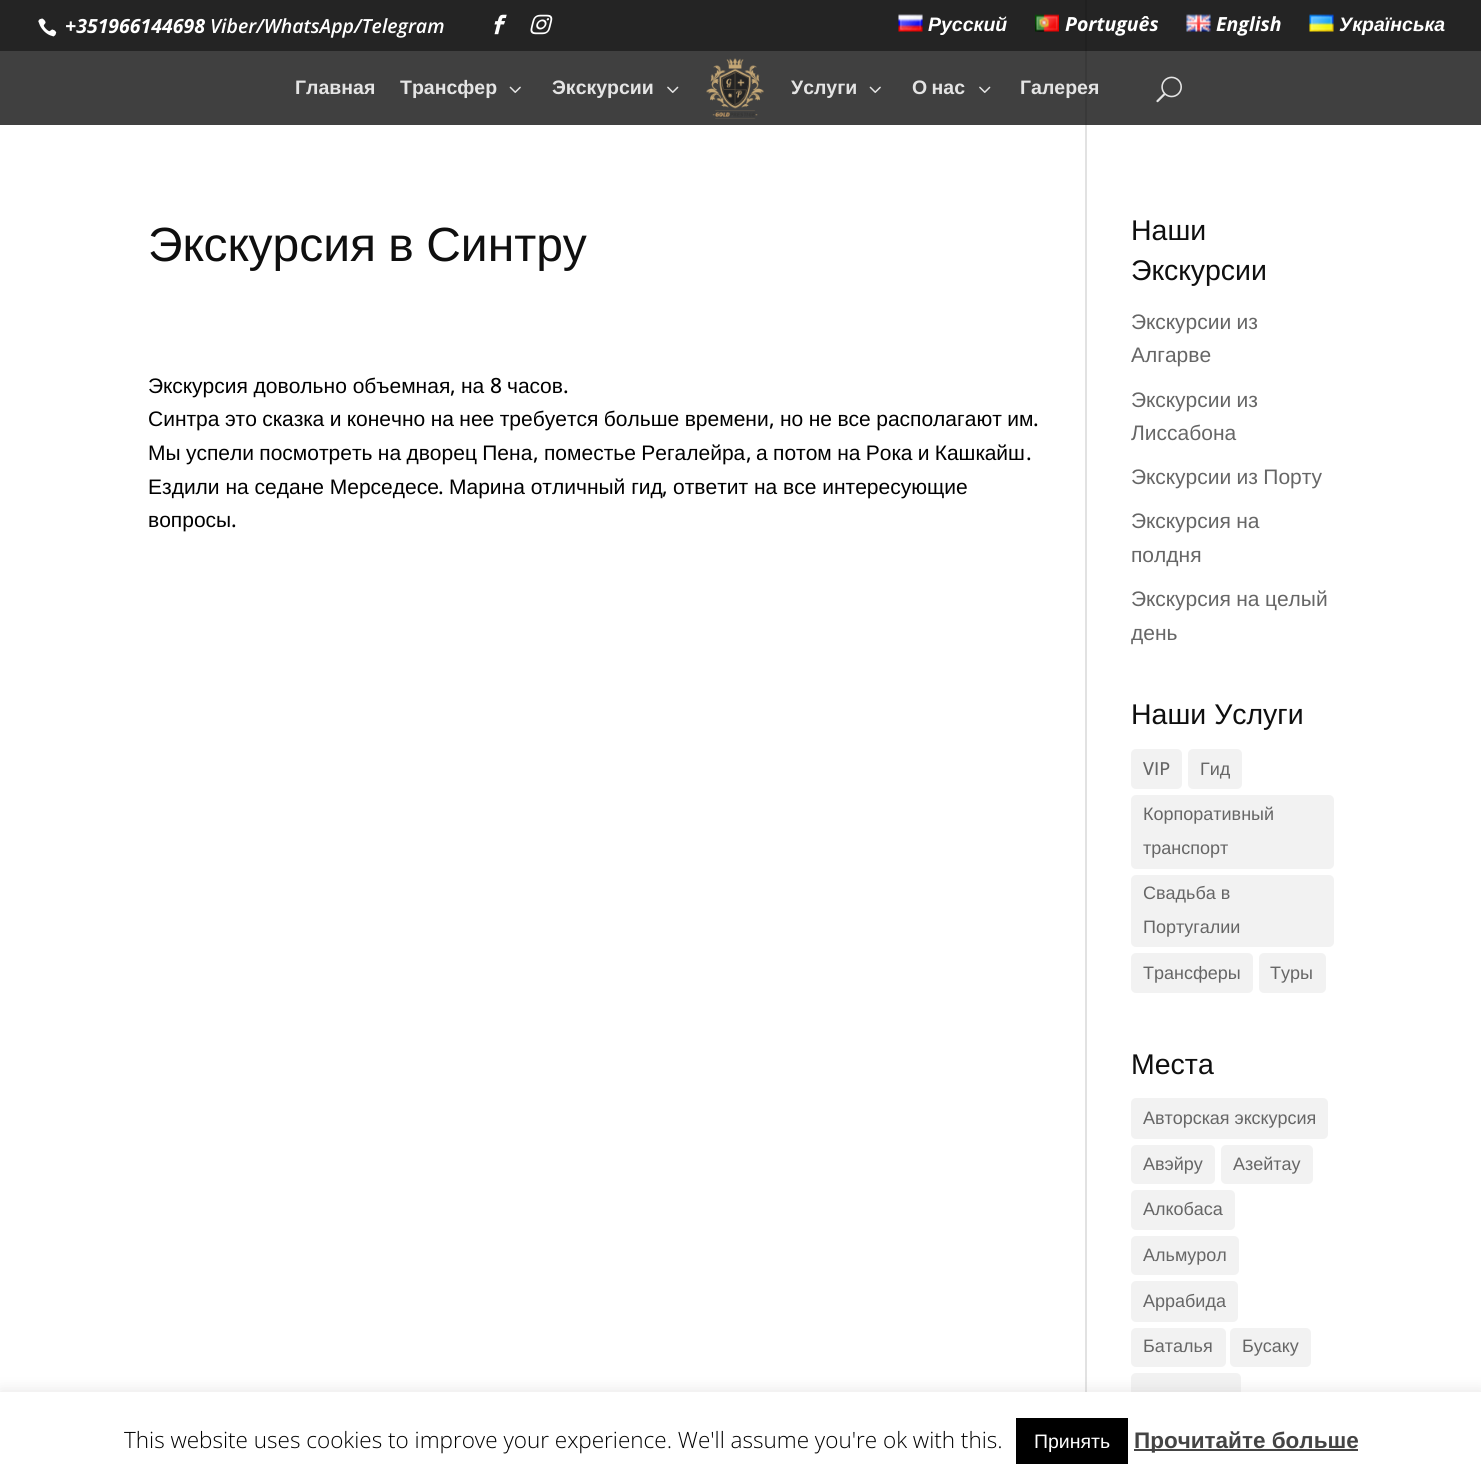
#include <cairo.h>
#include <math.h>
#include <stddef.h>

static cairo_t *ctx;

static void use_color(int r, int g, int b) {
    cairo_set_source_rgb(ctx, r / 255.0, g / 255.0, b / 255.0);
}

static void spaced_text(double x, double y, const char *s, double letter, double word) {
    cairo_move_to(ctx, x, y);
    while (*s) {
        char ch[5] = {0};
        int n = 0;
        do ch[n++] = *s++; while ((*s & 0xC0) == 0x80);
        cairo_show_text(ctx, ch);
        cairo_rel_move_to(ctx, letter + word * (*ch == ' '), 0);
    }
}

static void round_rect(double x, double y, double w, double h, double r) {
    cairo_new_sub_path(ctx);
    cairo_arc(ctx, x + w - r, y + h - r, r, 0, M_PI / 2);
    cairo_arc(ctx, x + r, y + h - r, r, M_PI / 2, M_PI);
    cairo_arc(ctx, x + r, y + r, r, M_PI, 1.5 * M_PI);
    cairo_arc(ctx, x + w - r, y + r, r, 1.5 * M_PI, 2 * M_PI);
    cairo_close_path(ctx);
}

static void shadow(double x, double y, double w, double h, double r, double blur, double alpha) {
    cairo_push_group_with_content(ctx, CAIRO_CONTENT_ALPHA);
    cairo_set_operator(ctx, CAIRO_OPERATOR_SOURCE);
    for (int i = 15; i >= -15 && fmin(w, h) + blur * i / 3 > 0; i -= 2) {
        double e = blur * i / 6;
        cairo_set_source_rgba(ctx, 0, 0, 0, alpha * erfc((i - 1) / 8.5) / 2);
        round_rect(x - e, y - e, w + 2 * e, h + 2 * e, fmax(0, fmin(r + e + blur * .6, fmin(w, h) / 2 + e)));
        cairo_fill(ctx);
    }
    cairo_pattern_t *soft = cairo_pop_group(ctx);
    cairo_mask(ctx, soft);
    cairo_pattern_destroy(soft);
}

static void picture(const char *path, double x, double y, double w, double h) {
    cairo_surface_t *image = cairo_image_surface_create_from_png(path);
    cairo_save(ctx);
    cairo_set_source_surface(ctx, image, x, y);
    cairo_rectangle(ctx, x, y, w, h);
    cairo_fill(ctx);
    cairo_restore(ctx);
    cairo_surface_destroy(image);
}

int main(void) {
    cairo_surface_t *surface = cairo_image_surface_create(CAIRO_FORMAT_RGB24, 1481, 1481);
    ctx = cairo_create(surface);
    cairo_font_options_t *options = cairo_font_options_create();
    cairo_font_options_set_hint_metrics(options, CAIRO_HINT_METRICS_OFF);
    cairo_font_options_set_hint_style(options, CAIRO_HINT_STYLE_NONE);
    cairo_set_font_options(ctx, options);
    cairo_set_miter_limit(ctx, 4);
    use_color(255, 255, 255);
    cairo_paint(ctx);
    use_color(36, 36, 36);
    cairo_rectangle(ctx, 0, 0, 1481, 51);
    cairo_fill(ctx);
    use_color(64, 64, 64);
    cairo_rectangle(ctx, 0, 51, 1481, 74);
    cairo_fill(ctx);
    picture("img1.png", 38, 18, 19, 19);
    cairo_select_font_face(ctx, "Open Sans", CAIRO_FONT_SLANT_ITALIC, CAIRO_FONT_WEIGHT_BOLD);
    cairo_set_font_size(ctx, 19.5);
    use_color(255, 255, 255);
    cairo_move_to(ctx, 65, 33);
    cairo_show_text(ctx, "+351966144698");
    cairo_select_font_face(ctx, "Open Sans SemiBold", CAIRO_FONT_SLANT_ITALIC, CAIRO_FONT_WEIGHT_NORMAL);
    cairo_move_to(ctx, 210, 33);
    cairo_show_text(ctx, "Viber/WhatsApp/Telegram");
    picture("img2.png", 494, 14, 13, 21);
    picture("img3.png", 530, 14, 23, 21);
    picture("img4.png", 898, 14, 25, 18);
    cairo_select_font_face(ctx, "Liberation Sans", CAIRO_FONT_SLANT_ITALIC, CAIRO_FONT_WEIGHT_BOLD);
    cairo_move_to(ctx, 928, 31);
    cairo_show_text(ctx, "Русский");
    picture("img5.png", 1035, 14, 24, 18);
    use_color(32, 32, 32);
    cairo_rectangle(ctx, 1085, 0, 2, 51);
    cairo_fill(ctx);
    cairo_select_font_face(ctx, "Open Sans", CAIRO_FONT_SLANT_ITALIC, CAIRO_FONT_WEIGHT_BOLD);
    use_color(255, 255, 255);
    cairo_move_to(ctx, 1065, 31);
    cairo_show_text(ctx, "Português");
    picture("img6.png", 1186, 14, 25, 18);
    cairo_move_to(ctx, 1216, 31);
    cairo_show_text(ctx, "English");
    picture("img7.png", 1309, 14, 25, 18);
    cairo_select_font_face(ctx, "Liberation Sans", CAIRO_FONT_SLANT_ITALIC, CAIRO_FONT_WEIGHT_BOLD);
    cairo_move_to(ctx, 1339, 31);
    cairo_show_text(ctx, "Українська");
    cairo_select_font_face(ctx, "Liberation Sans", CAIRO_FONT_SLANT_NORMAL, CAIRO_FONT_WEIGHT_BOLD);
    use_color(228, 228, 228);
    cairo_move_to(ctx, 295, 94);
    cairo_show_text(ctx, "Главная");
    cairo_move_to(ctx, 400, 94);
    cairo_show_text(ctx, "Трансфер");
    picture("img8.png", 509, 86, 12, 7);
    cairo_move_to(ctx, 552, 94);
    cairo_show_text(ctx, "Экскурсии");
    picture("img9.png", 667, 86, 12, 7);
    picture("img10.png", 706, 58, 58, 61);
    cairo_move_to(ctx, 791, 94);
    cairo_show_text(ctx, "Услуги");
    picture("img8.png", 869, 86, 12, 7);
    spaced_text(912, 94, "О нас", 0, -1);
    picture("img9.png", 979, 86, 12, 7);
    use_color(57, 57, 57);
    cairo_rectangle(ctx, 1085, 51, 2, 74);
    cairo_fill(ctx);
    use_color(228, 228, 228);
    cairo_move_to(ctx, 1020, 94);
    cairo_show_text(ctx, "Галерея");
    picture("img11.png", 1156, 76, 26, 27);
    use_color(226, 226, 226);
    cairo_rectangle(ctx, 1085, 125, 2, 1267);
    cairo_fill(ctx);
    cairo_select_font_face(ctx, "Liberation Sans", CAIRO_FONT_SLANT_NORMAL, CAIRO_FONT_WEIGHT_NORMAL);
    cairo_set_font_size(ctx, 48);
    use_color(15, 15, 15);
    spaced_text(148, 261, "Экскурсия в Синтру", 0, -1);
    cairo_set_font_size(ctx, 21);
    use_color(0, 0, 0);
    cairo_move_to(ctx, 148, 393);
    cairo_show_text(ctx, "Экскурсия довольно объемная");
    cairo_select_font_face(ctx, "Open Sans Medium", CAIRO_FONT_SLANT_NORMAL, CAIRO_FONT_WEIGHT_NORMAL);
    cairo_move_to(ctx, 450, 393);
    cairo_show_text(ctx, ",");
    cairo_select_font_face(ctx, "Liberation Sans", CAIRO_FONT_SLANT_NORMAL, CAIRO_FONT_WEIGHT_NORMAL);
    cairo_move_to(ctx, 461, 393);
    cairo_show_text(ctx, "на");
    cairo_select_font_face(ctx, "Open Sans Medium", CAIRO_FONT_SLANT_NORMAL, CAIRO_FONT_WEIGHT_NORMAL);
    cairo_move_to(ctx, 490, 393);
    cairo_show_text(ctx, "8");
    cairo_select_font_face(ctx, "Liberation Sans", CAIRO_FONT_SLANT_NORMAL, CAIRO_FONT_WEIGHT_NORMAL);
    cairo_move_to(ctx, 507, 393);
    cairo_show_text(ctx, "часов");
    cairo_select_font_face(ctx, "Open Sans Medium", CAIRO_FONT_SLANT_NORMAL, CAIRO_FONT_WEIGHT_NORMAL);
    cairo_move_to(ctx, 563, 393);
    cairo_show_text(ctx, ".");
    cairo_select_font_face(ctx, "Liberation Sans", CAIRO_FONT_SLANT_NORMAL, CAIRO_FONT_WEIGHT_NORMAL);
    spaced_text(148, 426, "Синтра это сказка и конечно на нее требуется больше времени", 0, -0.4);
    cairo_select_font_face(ctx, "Open Sans Medium", CAIRO_FONT_SLANT_NORMAL, CAIRO_FONT_WEIGHT_NORMAL);
    cairo_move_to(ctx, 769, 426);
    cairo_show_text(ctx, ",");
    cairo_select_font_face(ctx, "Liberation Sans", CAIRO_FONT_SLANT_NORMAL, CAIRO_FONT_WEIGHT_NORMAL);
    spaced_text(780, 426, "но не все располагают им", 0, -0.4);
    cairo_select_font_face(ctx, "Open Sans Medium", CAIRO_FONT_SLANT_NORMAL, CAIRO_FONT_WEIGHT_NORMAL);
    cairo_move_to(ctx, 1033, 426);
    cairo_show_text(ctx, ".");
    cairo_select_font_face(ctx, "Liberation Sans", CAIRO_FONT_SLANT_NORMAL, CAIRO_FONT_WEIGHT_NORMAL);
    spaced_text(148, 460, "Мы успели посмотреть на дворец Пена", 0, -0.5);
    cairo_select_font_face(ctx, "Open Sans Medium", CAIRO_FONT_SLANT_NORMAL, CAIRO_FONT_WEIGHT_NORMAL);
    cairo_move_to(ctx, 533, 460);
    cairo_show_text(ctx, ",");
    cairo_select_font_face(ctx, "Liberation Sans", CAIRO_FONT_SLANT_NORMAL, CAIRO_FONT_WEIGHT_NORMAL);
    spaced_text(544, 460, "поместье Регалейра", 0, -0.5);
    cairo_select_font_face(ctx, "Open Sans Medium", CAIRO_FONT_SLANT_NORMAL, CAIRO_FONT_WEIGHT_NORMAL);
    cairo_move_to(ctx, 746, 460);
    cairo_show_text(ctx, ",");
    cairo_select_font_face(ctx, "Liberation Sans", CAIRO_FONT_SLANT_NORMAL, CAIRO_FONT_WEIGHT_NORMAL);
    spaced_text(756, 460, "а потом на Рока и Кашкайш", 0, -0.5);
    cairo_select_font_face(ctx, "Open Sans Medium", CAIRO_FONT_SLANT_NORMAL, CAIRO_FONT_WEIGHT_NORMAL);
    cairo_move_to(ctx, 1026, 460);
    cairo_show_text(ctx, ".");
    cairo_select_font_face(ctx, "Liberation Sans", CAIRO_FONT_SLANT_NORMAL, CAIRO_FONT_WEIGHT_NORMAL);
    cairo_move_to(ctx, 148, 494);
    cairo_show_text(ctx, "Ездили на седане Мерседесе");
    cairo_select_font_face(ctx, "Open Sans Medium", CAIRO_FONT_SLANT_NORMAL, CAIRO_FONT_WEIGHT_NORMAL);
    cairo_move_to(ctx, 438, 494);
    cairo_show_text(ctx, ".");
    cairo_select_font_face(ctx, "Liberation Sans", CAIRO_FONT_SLANT_NORMAL, CAIRO_FONT_WEIGHT_NORMAL);
    cairo_move_to(ctx, 449, 494);
    cairo_show_text(ctx, "Марина отличный гид");
    cairo_select_font_face(ctx, "Open Sans Medium", CAIRO_FONT_SLANT_NORMAL, CAIRO_FONT_WEIGHT_NORMAL);
    cairo_move_to(ctx, 662, 494);
    cairo_show_text(ctx, ",");
    cairo_select_font_face(ctx, "Liberation Sans", CAIRO_FONT_SLANT_NORMAL, CAIRO_FONT_WEIGHT_NORMAL);
    cairo_move_to(ctx, 673, 494);
    cairo_show_text(ctx, "ответит на все интересующие");
    cairo_move_to(ctx, 148, 527);
    cairo_show_text(ctx, "вопросы");
    cairo_select_font_face(ctx, "Open Sans Medium", CAIRO_FONT_SLANT_NORMAL, CAIRO_FONT_WEIGHT_NORMAL);
    cairo_move_to(ctx, 231, 527);
    cairo_show_text(ctx, ".");
    cairo_select_font_face(ctx, "Liberation Sans", CAIRO_FONT_SLANT_NORMAL, CAIRO_FONT_WEIGHT_NORMAL);
    cairo_set_font_size(ctx, 28.5);
    use_color(15, 15, 15);
    cairo_move_to(ctx, 1131, 240);
    cairo_show_text(ctx, "Наши");
    cairo_move_to(ctx, 1131, 280);
    cairo_show_text(ctx, "Экскурсии");
    cairo_set_font_size(ctx, 21);
    use_color(102, 102, 102);
    spaced_text(1131, 329, "Экскурсии из", 0, -0.4);
    cairo_move_to(ctx, 1131, 362);
    cairo_show_text(ctx, "Алгарве");
    spaced_text(1131, 407, "Экскурсии из", 0, -0.4);
    cairo_move_to(ctx, 1131, 440);
    cairo_show_text(ctx, "Лиссабона");
    spaced_text(1131, 484, "Экскурсии из Порту", 0, -0.4);
    spaced_text(1131, 528, "Экскурсия на", 0, -0.4);
    cairo_move_to(ctx, 1131, 562);
    cairo_show_text(ctx, "полдня");
    spaced_text(1131, 606, "Экскурсия на целый", 0, -0.4);
    cairo_move_to(ctx, 1131, 640);
    cairo_show_text(ctx, "день");
    cairo_set_font_size(ctx, 28.5);
    use_color(15, 15, 15);
    cairo_move_to(ctx, 1131, 724);
    cairo_show_text(ctx, "Наши Услуги");
    use_color(242, 242, 242);
    round_rect(1131, 749, 51, 40, 5);
    cairo_fill(ctx);
    cairo_select_font_face(ctx, "Open Sans Medium", CAIRO_FONT_SLANT_NORMAL, CAIRO_FONT_WEIGHT_NORMAL);
    cairo_set_font_size(ctx, 18);
    use_color(102, 102, 102);
    cairo_move_to(ctx, 1143, 775);
    cairo_show_text(ctx, "VIP");
    use_color(242, 242, 242);
    round_rect(1188, 749, 54, 40, 5);
    cairo_fill(ctx);
    cairo_select_font_face(ctx, "Liberation Sans", CAIRO_FONT_SLANT_NORMAL, CAIRO_FONT_WEIGHT_NORMAL);
    use_color(102, 102, 102);
    cairo_move_to(ctx, 1200, 775);
    cairo_show_text(ctx, "Гид");
    use_color(242, 242, 242);
    round_rect(1131, 795, 203, 74, 5);
    cairo_fill(ctx);
    use_color(102, 102, 102);
    cairo_move_to(ctx, 1143, 820);
    cairo_show_text(ctx, "Корпоративный");
    cairo_move_to(ctx, 1143, 854);
    cairo_show_text(ctx, "транспорт");
    use_color(242, 242, 242);
    round_rect(1131, 875, 203, 72, 5);
    cairo_fill(ctx);
    use_color(102, 102, 102);
    cairo_move_to(ctx, 1143, 899);
    cairo_show_text(ctx, "Свадьба в");
    cairo_move_to(ctx, 1143, 933);
    cairo_show_text(ctx, "Португалии");
    use_color(242, 242, 242);
    round_rect(1131, 953, 122, 40, 5);
    cairo_fill(ctx);
    use_color(102, 102, 102);
    cairo_move_to(ctx, 1143, 979);
    cairo_show_text(ctx, "Трансферы");
    use_color(242, 242, 242);
    round_rect(1259, 953, 67, 40, 5);
    cairo_fill(ctx);
    use_color(102, 102, 102);
    cairo_move_to(ctx, 1270, 979);
    cairo_show_text(ctx, "Туры");
    cairo_set_font_size(ctx, 28.5);
    use_color(15, 15, 15);
    cairo_move_to(ctx, 1131, 1074);
    cairo_show_text(ctx, "Места");
    use_color(242, 242, 242);
    round_rect(1131, 1098, 197, 41, 5);
    cairo_fill(ctx);
    cairo_set_font_size(ctx, 18);
    use_color(102, 102, 102);
    cairo_move_to(ctx, 1143, 1124);
    cairo_show_text(ctx, "Авторская экскурсия");
    use_color(242, 242, 242);
    round_rect(1131, 1145, 84, 39, 5);
    cairo_fill(ctx);
    use_color(102, 102, 102);
    cairo_move_to(ctx, 1143, 1170);
    cairo_show_text(ctx, "Авэйру");
    use_color(242, 242, 242);
    round_rect(1221, 1145, 92, 39, 5);
    cairo_fill(ctx);
    use_color(102, 102, 102);
    cairo_move_to(ctx, 1233, 1170);
    cairo_show_text(ctx, "Азейтау");
    use_color(242, 242, 242);
    round_rect(1131, 1190, 104, 40, 5);
    cairo_fill(ctx);
    use_color(102, 102, 102);
    cairo_move_to(ctx, 1143, 1215);
    cairo_show_text(ctx, "Алкобаса");
    use_color(242, 242, 242);
    round_rect(1131, 1236, 108, 39, 5);
    cairo_fill(ctx);
    use_color(102, 102, 102);
    cairo_move_to(ctx, 1143, 1261);
    cairo_show_text(ctx, "Альмурол");
    use_color(242, 242, 242);
    round_rect(1131, 1281, 107, 41, 5);
    cairo_fill(ctx);
    use_color(102, 102, 102);
    cairo_move_to(ctx, 1143, 1307);
    cairo_show_text(ctx, "Аррабида");
    use_color(242, 242, 242);
    round_rect(1131, 1328, 95, 39, 5);
    cairo_fill(ctx);
    use_color(102, 102, 102);
    cairo_move_to(ctx, 1143, 1352);
    cairo_show_text(ctx, "Баталья");
    use_color(242, 242, 242);
    round_rect(1230, 1328, 81, 39, 5);
    cairo_fill(ctx);
    use_color(102, 102, 102);
    cairo_move_to(ctx, 1242, 1352);
    cairo_show_text(ctx, "Бусаку");
    use_color(242, 242, 242);
    round_rect(1131, 1373, 110, 39, 5);
    cairo_fill(ctx);
    use_color(172, 171, 171);
    shadow(0, 1391, 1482, 90, 0, 7.5, 0.3);
    use_color(255, 255, 255);
    cairo_rectangle(ctx, 0, 1392, 1481, 89);
    cairo_fill(ctx);
    cairo_select_font_face(ctx, "Open Sans Light", CAIRO_FONT_SLANT_NORMAL, CAIRO_FONT_WEIGHT_NORMAL);
    cairo_set_font_size(ctx, 22.5);
    use_color(0, 0, 0);
    cairo_move_to(ctx, 124, 1448);
    cairo_show_text(ctx, "This website uses cookies to improve your experience. We'll assume you're ok with this.");
    cairo_rectangle(ctx, 1016, 1418, 112, 46);
    cairo_fill(ctx);
    cairo_select_font_face(ctx, "Liberation Sans", CAIRO_FONT_SLANT_NORMAL, CAIRO_FONT_WEIGHT_NORMAL);
    cairo_set_font_size(ctx, 19.5);
    use_color(255, 255, 255);
    cairo_move_to(ctx, 1034, 1448);
    cairo_show_text(ctx, "Принять");
    use_color(68, 68, 68);
    cairo_rectangle(ctx, 1134, 1449, 224, 2);
    cairo_fill(ctx);
    cairo_select_font_face(ctx, "Liberation Sans", CAIRO_FONT_SLANT_NORMAL, CAIRO_FONT_WEIGHT_BOLD);
    cairo_set_font_size(ctx, 22.5);
    cairo_move_to(ctx, 1134, 1448);
    cairo_show_text(ctx, "Прочитайте больше");
    cairo_surface_write_to_png(surface, "result.png");
    cairo_font_options_destroy(options);
    cairo_destroy(ctx);
    cairo_surface_destroy(surface);
    return 0;
}
